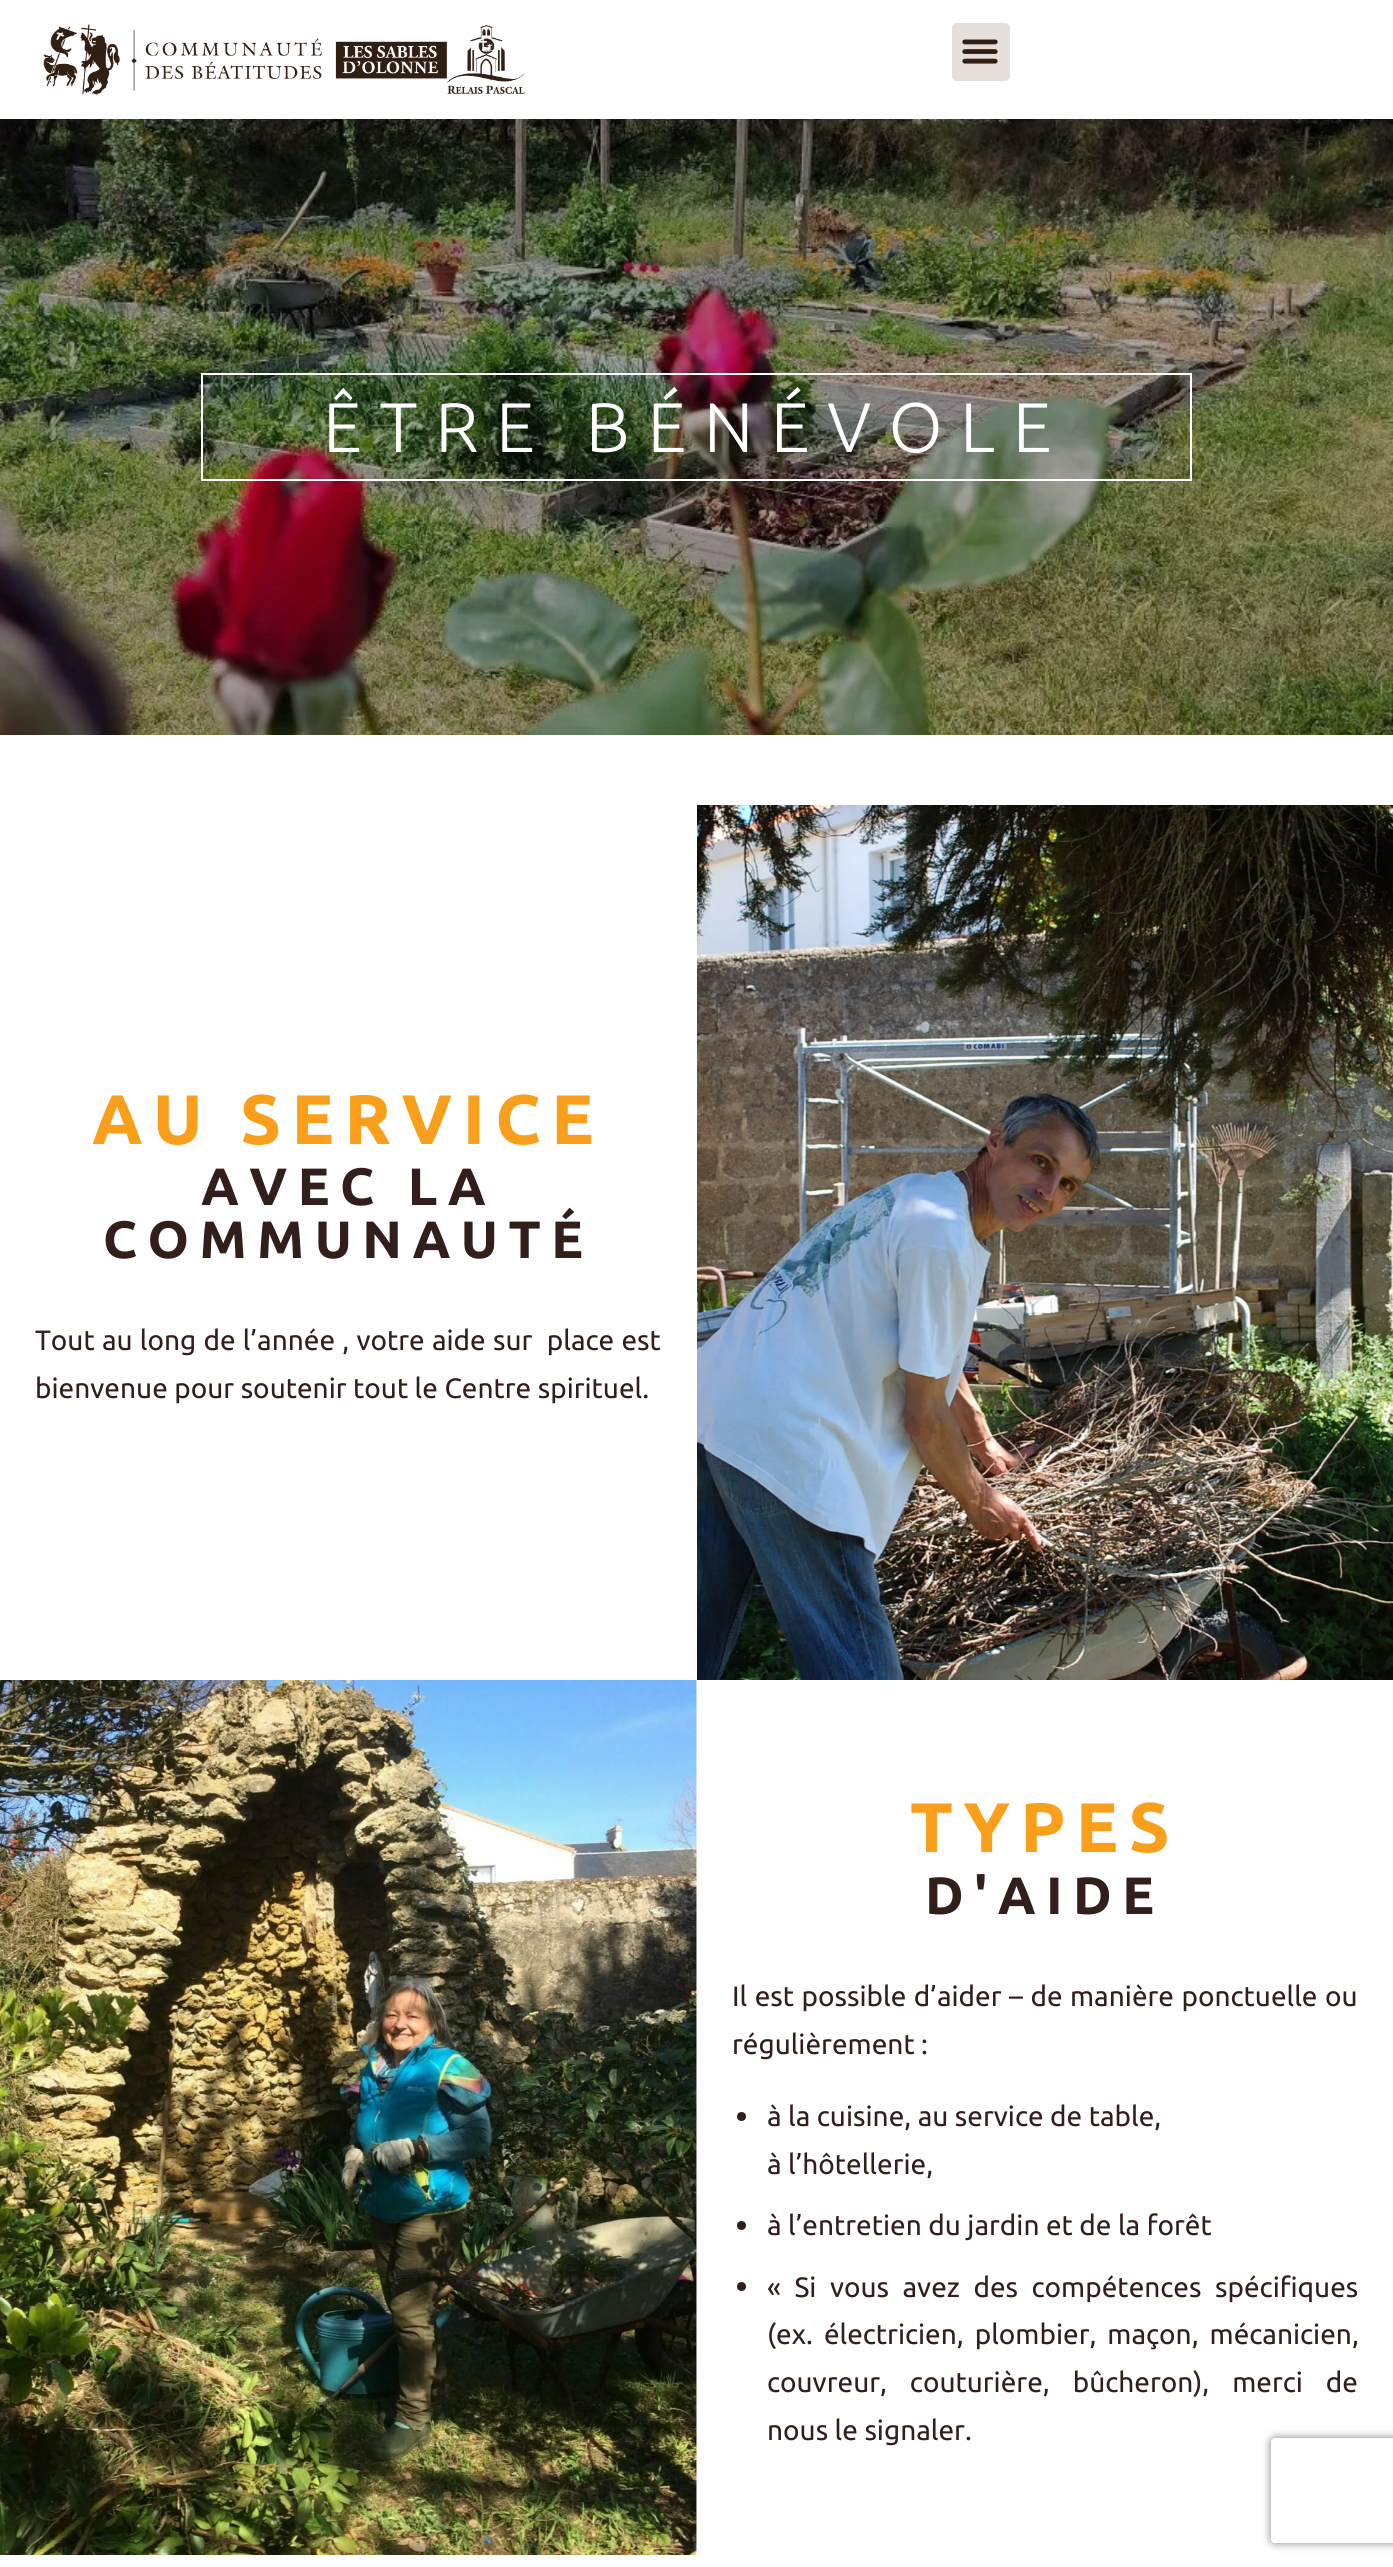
#include <cairo.h>
#include <math.h>
#include <stddef.h>

static cairo_t *ctx;

static void use_color(int r, int g, int b) {
    cairo_set_source_rgb(ctx, r / 255.0, g / 255.0, b / 255.0);
}

static void spaced_text(double x, double y, const char *s, double letter, double word) {
    cairo_move_to(ctx, x, y);
    while (*s) {
        char ch[5] = {0};
        int n = 0;
        do ch[n++] = *s++; while ((*s & 0xC0) == 0x80);
        cairo_show_text(ctx, ch);
        cairo_rel_move_to(ctx, letter + word * (*ch == ' '), 0);
    }
}

static void round_rect(double x, double y, double w, double h, double r) {
    cairo_new_sub_path(ctx);
    cairo_arc(ctx, x + w - r, y + h - r, r, 0, M_PI / 2);
    cairo_arc(ctx, x + r, y + h - r, r, M_PI / 2, M_PI);
    cairo_arc(ctx, x + r, y + r, r, M_PI, 1.5 * M_PI);
    cairo_arc(ctx, x + w - r, y + r, r, 1.5 * M_PI, 2 * M_PI);
    cairo_close_path(ctx);
}

static void shadow(double x, double y, double w, double h, double r, double blur, double alpha) {
    cairo_push_group_with_content(ctx, CAIRO_CONTENT_ALPHA);
    cairo_set_operator(ctx, CAIRO_OPERATOR_SOURCE);
    for (int i = 15; i >= -15 && fmin(w, h) + blur * i / 3 > 0; i -= 2) {
        double e = blur * i / 6;
        cairo_set_source_rgba(ctx, 0, 0, 0, alpha * erfc((i - 1) / 8.5) / 2);
        round_rect(x - e, y - e, w + 2 * e, h + 2 * e, fmax(0, fmin(r + e + blur * .6, fmin(w, h) / 2 + e)));
        cairo_fill(ctx);
    }
    cairo_pattern_t *soft = cairo_pop_group(ctx);
    cairo_mask(ctx, soft);
    cairo_pattern_destroy(soft);
}

static void picture(const char *path, double x, double y, double w, double h) {
    cairo_surface_t *image = cairo_image_surface_create_from_png(path);
    cairo_save(ctx);
    cairo_set_source_surface(ctx, image, x, y);
    cairo_rectangle(ctx, x, y, w, h);
    cairo_fill(ctx);
    cairo_restore(ctx);
    cairo_surface_destroy(image);
}

int main(void) {
    cairo_surface_t *surface = cairo_image_surface_create(CAIRO_FORMAT_RGB24, 1393, 2567);
    ctx = cairo_create(surface);
    cairo_font_options_t *options = cairo_font_options_create();
    cairo_font_options_set_hint_metrics(options, CAIRO_HINT_METRICS_OFF);
    cairo_font_options_set_hint_style(options, CAIRO_HINT_STYLE_NONE);
    cairo_set_font_options(ctx, options);
    cairo_set_miter_limit(ctx, 4);
    use_color(255, 255, 255);
    cairo_paint(ctx);
    picture("img1.png", 43, 24, 482, 71);
    use_color(229, 222, 217);
    round_rect(952, 23, 58, 58, 5);
    cairo_fill(ctx);
    picture("img2.png", 962, 39, 36, 25);
    picture("img3.png", 0, 119, 1393, 616);
    cairo_rectangle(ctx, 202, 374, 989, 106);
    use_color(255, 255, 255);
    cairo_stroke(ctx);
    cairo_select_font_face(ctx, "Ubuntu Light", CAIRO_FONT_SLANT_NORMAL, CAIRO_FONT_WEIGHT_NORMAL);
    cairo_set_font_size(ctx, 70);
    spaced_text(323, 452, "ÊTRE BÉNÉVOLE", 17.5, 0);
    cairo_select_font_face(ctx, "Ubuntu", CAIRO_FONT_SLANT_NORMAL, CAIRO_FONT_WEIGHT_BOLD);
    use_color(249, 159, 28);
    spaced_text(92, 1144, "AU SERVICE", 10.5, 0);
    cairo_set_font_size(ctx, 52.5);
    use_color(50, 31, 28);
    spaced_text(201, 1205, "AVEC LA", 10.5, 0);
    spaced_text(103, 1258, "COMMUNAUTÉ", 10.5, 0);
    cairo_select_font_face(ctx, "Ubuntu", CAIRO_FONT_SLANT_NORMAL, CAIRO_FONT_WEIGHT_NORMAL);
    cairo_set_font_size(ctx, 28);
    spaced_text(35, 1350, "Tout au long de l’année , votre aide sur  place est", 0, 0.75);
    cairo_move_to(ctx, 35, 1398);
    cairo_show_text(ctx, "bienvenue pour soutenir tout le Centre spirituel.");
    picture("img4.png", 697, 805, 696, 875);
    picture("img5.png", 0, 1680, 697, 875);
    cairo_select_font_face(ctx, "Ubuntu", CAIRO_FONT_SLANT_NORMAL, CAIRO_FONT_WEIGHT_BOLD);
    cairo_set_font_size(ctx, 70);
    use_color(249, 159, 28);
    spaced_text(910, 1852, "TYPES", 10.5, 0);
    cairo_set_font_size(ctx, 52.5);
    use_color(50, 31, 28);
    spaced_text(925, 1914, "D'AIDE", 10.5, 0);
    cairo_select_font_face(ctx, "Ubuntu", CAIRO_FONT_SLANT_NORMAL, CAIRO_FONT_WEIGHT_NORMAL);
    cairo_set_font_size(ctx, 28);
    spaced_text(732, 2006, "Il est possible d’aider – de manière ponctuelle ou", 0, 1);
    cairo_move_to(ctx, 732, 2054);
    cairo_show_text(ctx, "régulièrement :");
    cairo_new_path(ctx);
    cairo_arc(ctx, 741.5, 2116.5, 4.5, 0, 2 * M_PI);
    cairo_fill(ctx);
    cairo_move_to(ctx, 767, 2126);
    cairo_show_text(ctx, "à la cuisine, au service de table,");
    cairo_move_to(ctx, 767, 2174);
    cairo_show_text(ctx, "à l’hôtellerie,");
    cairo_new_path(ctx);
    cairo_arc(ctx, 741.5, 2225.5, 4.5, 0, 2 * M_PI);
    cairo_fill(ctx);
    cairo_move_to(ctx, 767, 2235);
    cairo_show_text(ctx, "à l’entretien du jardin et de la forêt");
    cairo_new_path(ctx);
    cairo_arc(ctx, 741.5, 2286.5, 4.5, 0, 2 * M_PI);
    cairo_fill(ctx);
    spaced_text(767, 2297, "« Si vous avez des compétences spécifiques", 0, 7);
    spaced_text(767, 2344, "(ex. électricien, plombier, maçon, mécanicien,", 0, 4.5);
    spaced_text(767, 2392, "couvreur, couturière, bûcheron), merci de", 0, 16.5);
    cairo_move_to(ctx, 767, 2440);
    cairo_show_text(ctx, "nous le signaler.");
    cairo_save(ctx);
    cairo_set_fill_rule(ctx, CAIRO_FILL_RULE_EVEN_ODD);
    cairo_new_path(ctx);
    cairo_move_to(ctx, 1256, 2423);
    cairo_line_to(ctx, 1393, 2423);
    cairo_line_to(ctx, 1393, 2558);
    cairo_line_to(ctx, 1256, 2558);
    cairo_close_path(ctx);
    cairo_move_to(ctx, 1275, 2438);
    cairo_line_to(ctx, 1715, 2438);
    cairo_curve_to(ctx, 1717, 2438, 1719, 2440, 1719, 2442);
    cairo_line_to(ctx, 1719, 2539);
    cairo_curve_to(ctx, 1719, 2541, 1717, 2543, 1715, 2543);
    cairo_line_to(ctx, 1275, 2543);
    cairo_curve_to(ctx, 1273, 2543, 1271, 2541, 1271, 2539);
    cairo_line_to(ctx, 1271, 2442);
    cairo_curve_to(ctx, 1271, 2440, 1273, 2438, 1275, 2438);
    cairo_close_path(ctx);
    cairo_clip(ctx);
    use_color(128, 128, 128);
    shadow(1271, 2438, 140, 105, 4, 4.5, 1);
    cairo_restore(ctx);
    cairo_surface_write_to_png(surface, "result.png");
    cairo_font_options_destroy(options);
    cairo_destroy(ctx);
    cairo_surface_destroy(surface);
    return 0;
}
